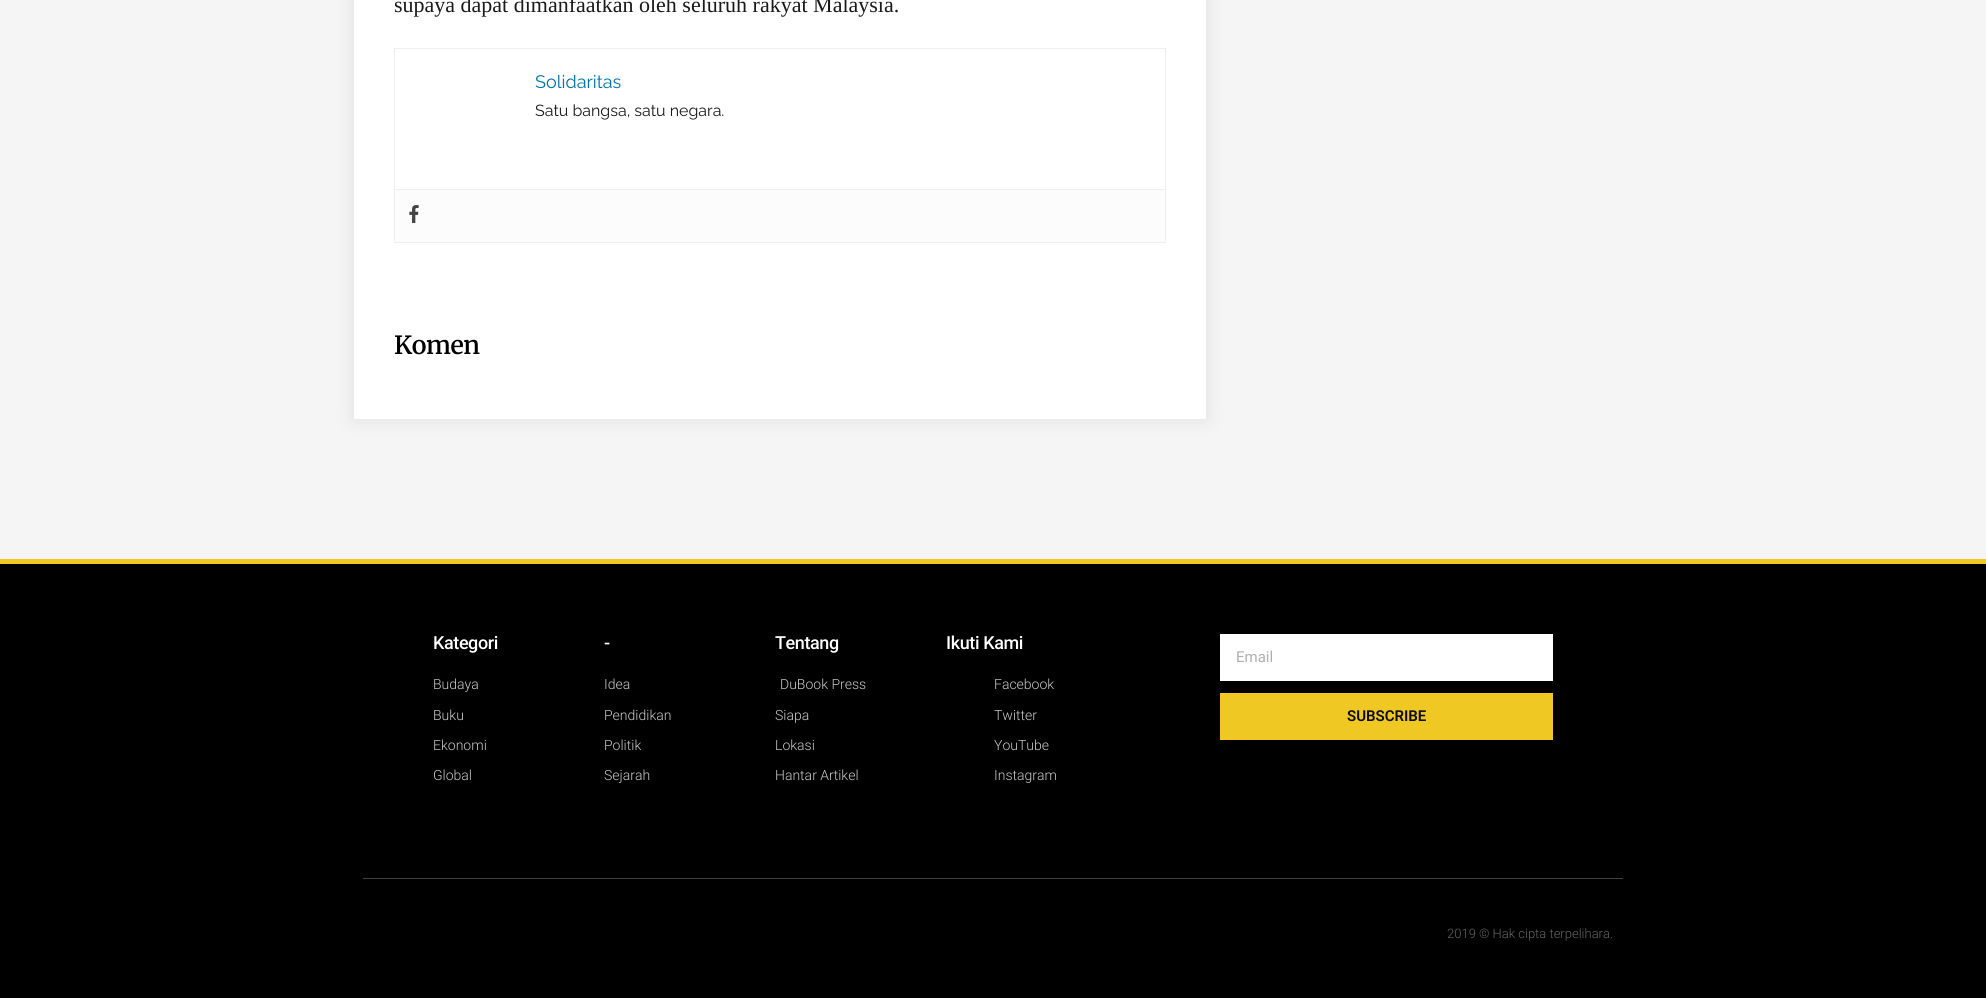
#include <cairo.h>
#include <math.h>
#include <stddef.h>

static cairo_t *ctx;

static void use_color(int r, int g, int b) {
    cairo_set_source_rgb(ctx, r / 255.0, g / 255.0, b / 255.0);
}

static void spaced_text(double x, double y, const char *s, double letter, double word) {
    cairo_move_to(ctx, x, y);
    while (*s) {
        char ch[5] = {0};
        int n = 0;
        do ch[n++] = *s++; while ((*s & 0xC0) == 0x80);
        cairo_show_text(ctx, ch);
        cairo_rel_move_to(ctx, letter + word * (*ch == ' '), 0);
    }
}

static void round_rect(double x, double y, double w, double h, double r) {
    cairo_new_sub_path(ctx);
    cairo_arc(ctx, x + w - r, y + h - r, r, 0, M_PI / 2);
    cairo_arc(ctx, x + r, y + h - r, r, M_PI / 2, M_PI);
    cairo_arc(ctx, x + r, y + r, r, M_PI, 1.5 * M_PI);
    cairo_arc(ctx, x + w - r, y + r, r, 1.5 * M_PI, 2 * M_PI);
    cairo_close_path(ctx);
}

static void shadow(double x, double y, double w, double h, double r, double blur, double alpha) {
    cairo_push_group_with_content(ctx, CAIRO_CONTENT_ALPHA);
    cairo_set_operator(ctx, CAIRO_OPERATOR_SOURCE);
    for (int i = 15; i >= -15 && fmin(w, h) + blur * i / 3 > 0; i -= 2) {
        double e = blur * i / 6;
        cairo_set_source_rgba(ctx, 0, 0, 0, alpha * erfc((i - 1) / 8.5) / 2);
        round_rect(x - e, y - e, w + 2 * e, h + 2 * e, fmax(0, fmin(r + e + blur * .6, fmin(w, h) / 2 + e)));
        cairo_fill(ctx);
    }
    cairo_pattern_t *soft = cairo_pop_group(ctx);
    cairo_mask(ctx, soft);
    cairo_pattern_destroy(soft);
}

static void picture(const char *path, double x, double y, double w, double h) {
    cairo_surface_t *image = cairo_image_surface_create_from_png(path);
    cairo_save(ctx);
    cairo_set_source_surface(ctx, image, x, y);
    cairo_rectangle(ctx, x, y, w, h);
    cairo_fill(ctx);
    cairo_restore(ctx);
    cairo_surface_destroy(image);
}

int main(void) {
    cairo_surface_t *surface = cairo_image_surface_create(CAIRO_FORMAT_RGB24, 1986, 998);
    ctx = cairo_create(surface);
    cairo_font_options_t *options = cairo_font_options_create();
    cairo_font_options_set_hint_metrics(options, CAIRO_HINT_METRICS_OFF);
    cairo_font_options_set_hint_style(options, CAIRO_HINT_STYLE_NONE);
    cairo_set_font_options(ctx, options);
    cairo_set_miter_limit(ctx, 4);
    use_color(245, 245, 245);
    cairo_paint(ctx);
    use_color(0, 0, 0);
    shadow(354, -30, 852, 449, 0, 10, 0.09);
    use_color(255, 255, 255);
    cairo_rectangle(ctx, 354, 0, 852, 419);
    cairo_fill(ctx);
    cairo_select_font_face(ctx, "Liberation Serif", CAIRO_FONT_SLANT_NORMAL, CAIRO_FONT_WEIGHT_NORMAL);
    cairo_set_font_size(ctx, 22);
    use_color(26, 26, 26);
    cairo_move_to(ctx, 394, 12);
    cairo_show_text(ctx, "supaya dapat dimanfaatkan oleh seluruh rakyat Malaysia.");
    cairo_rectangle(ctx, 394.5, 48.5, 771, 194);
    use_color(238, 238, 238);
    cairo_set_line_width(ctx, 1);
    cairo_stroke(ctx);
    cairo_select_font_face(ctx, "Raleway Thin", CAIRO_FONT_SLANT_NORMAL, CAIRO_FONT_WEIGHT_NORMAL);
    cairo_set_font_size(ctx, 18);
    use_color(0, 115, 170);
    cairo_move_to(ctx, 535, 88);
    cairo_show_text(ctx, "Solidaritas");
    cairo_set_font_size(ctx, 16);
    use_color(26, 26, 26);
    cairo_move_to(ctx, 535, 116);
    cairo_show_text(ctx, "Satu bangsa, satu negara.");
    use_color(252, 252, 252);
    cairo_rectangle(ctx, 395, 190, 770, 52);
    cairo_fill(ctx);
    use_color(238, 238, 238);
    cairo_rectangle(ctx, 395, 189, 770, 1);
    cairo_fill(ctx);
    picture("img1.png", 409, 205, 10, 18);
    cairo_select_font_face(ctx, "Merriweather SemiBold", CAIRO_FONT_SLANT_NORMAL, CAIRO_FONT_WEIGHT_NORMAL);
    cairo_set_font_size(ctx, 25);
    use_color(0, 0, 0);
    spaced_text(394, 354, "Komen", -0.5, 0);
    cairo_rectangle(ctx, 0, 564, 1986, 434);
    cairo_fill(ctx);
    use_color(240, 200, 35);
    cairo_rectangle(ctx, 0, 559, 1986, 5);
    cairo_fill(ctx);
    cairo_select_font_face(ctx, "Roboto Medium", CAIRO_FONT_SLANT_NORMAL, CAIRO_FONT_WEIGHT_NORMAL);
    cairo_set_font_size(ctx, 18);
    use_color(255, 255, 255);
    spaced_text(433, 649, "Kategori", -0.4, 0);
    cairo_select_font_face(ctx, "Roboto Light", CAIRO_FONT_SLANT_NORMAL, CAIRO_FONT_WEIGHT_NORMAL);
    cairo_set_font_size(ctx, 14);
    use_color(201, 201, 201);
    cairo_move_to(ctx, 433, 689);
    cairo_show_text(ctx, "Budaya");
    cairo_move_to(ctx, 433, 720);
    cairo_show_text(ctx, "Buku");
    cairo_move_to(ctx, 433, 750);
    cairo_show_text(ctx, "Ekonomi");
    cairo_move_to(ctx, 433, 780);
    cairo_show_text(ctx, "Global");
    cairo_select_font_face(ctx, "Roboto Medium", CAIRO_FONT_SLANT_NORMAL, CAIRO_FONT_WEIGHT_NORMAL);
    cairo_set_font_size(ctx, 18);
    use_color(255, 255, 255);
    spaced_text(604, 649, "-", -0.4, 0);
    cairo_select_font_face(ctx, "Roboto Light", CAIRO_FONT_SLANT_NORMAL, CAIRO_FONT_WEIGHT_NORMAL);
    cairo_set_font_size(ctx, 14);
    use_color(201, 201, 201);
    cairo_move_to(ctx, 604, 689);
    cairo_show_text(ctx, "Idea");
    cairo_move_to(ctx, 604, 720);
    cairo_show_text(ctx, "Pendidikan");
    cairo_move_to(ctx, 604, 750);
    cairo_show_text(ctx, "Politik");
    cairo_move_to(ctx, 604, 780);
    cairo_show_text(ctx, "Sejarah");
    cairo_select_font_face(ctx, "Roboto Medium", CAIRO_FONT_SLANT_NORMAL, CAIRO_FONT_WEIGHT_NORMAL);
    cairo_set_font_size(ctx, 18);
    use_color(255, 255, 255);
    spaced_text(775, 649, "Tentang", -0.4, 0);
    cairo_select_font_face(ctx, "Roboto Light", CAIRO_FONT_SLANT_NORMAL, CAIRO_FONT_WEIGHT_NORMAL);
    cairo_set_font_size(ctx, 14);
    use_color(201, 201, 201);
    cairo_move_to(ctx, 780, 689);
    cairo_show_text(ctx, "DuBook Press");
    cairo_move_to(ctx, 775, 720);
    cairo_show_text(ctx, "Siapa");
    cairo_move_to(ctx, 775, 750);
    cairo_show_text(ctx, "Lokasi");
    cairo_move_to(ctx, 775, 780);
    cairo_show_text(ctx, "Hantar Artikel");
    cairo_select_font_face(ctx, "Roboto Medium", CAIRO_FONT_SLANT_NORMAL, CAIRO_FONT_WEIGHT_NORMAL);
    cairo_set_font_size(ctx, 18);
    use_color(255, 255, 255);
    spaced_text(946, 649, "Ikuti Kami", -0.4, 0);
    cairo_select_font_face(ctx, "Roboto Light", CAIRO_FONT_SLANT_NORMAL, CAIRO_FONT_WEIGHT_NORMAL);
    cairo_set_font_size(ctx, 14);
    use_color(201, 201, 201);
    cairo_move_to(ctx, 994, 689);
    cairo_show_text(ctx, "Facebook");
    cairo_move_to(ctx, 994, 720);
    cairo_show_text(ctx, "Twitter");
    cairo_move_to(ctx, 994, 750);
    cairo_show_text(ctx, "YouTube");
    cairo_move_to(ctx, 994, 780);
    cairo_show_text(ctx, "Instagram");
    use_color(255, 255, 255);
    cairo_rectangle(ctx, 1220, 634, 333, 47);
    cairo_fill(ctx);
    cairo_select_font_face(ctx, "Roboto", CAIRO_FONT_SLANT_NORMAL, CAIRO_FONT_WEIGHT_NORMAL);
    cairo_set_font_size(ctx, 15);
    use_color(175, 175, 175);
    cairo_move_to(ctx, 1236, 662);
    cairo_show_text(ctx, "Email");
    use_color(240, 200, 35);
    cairo_rectangle(ctx, 1220, 693, 333, 47);
    cairo_fill(ctx);
    cairo_select_font_face(ctx, "Roboto SemiBold", CAIRO_FONT_SLANT_NORMAL, CAIRO_FONT_WEIGHT_NORMAL);
    use_color(12, 12, 12);
    cairo_move_to(ctx, 1347, 721);
    cairo_show_text(ctx, "SUBSCRIBE");
    use_color(64, 64, 64);
    cairo_rectangle(ctx, 363, 878, 1260, 1);
    cairo_fill(ctx);
    cairo_select_font_face(ctx, "Roboto Light", CAIRO_FONT_SLANT_NORMAL, CAIRO_FONT_WEIGHT_NORMAL);
    cairo_set_font_size(ctx, 13);
    use_color(99, 99, 99);
    cairo_move_to(ctx, 1447, 938);
    cairo_show_text(ctx, "2019 © Hak cipta terpelihara.");
    cairo_surface_write_to_png(surface, "result.png");
    cairo_font_options_destroy(options);
    cairo_destroy(ctx);
    cairo_surface_destroy(surface);
    return 0;
}
